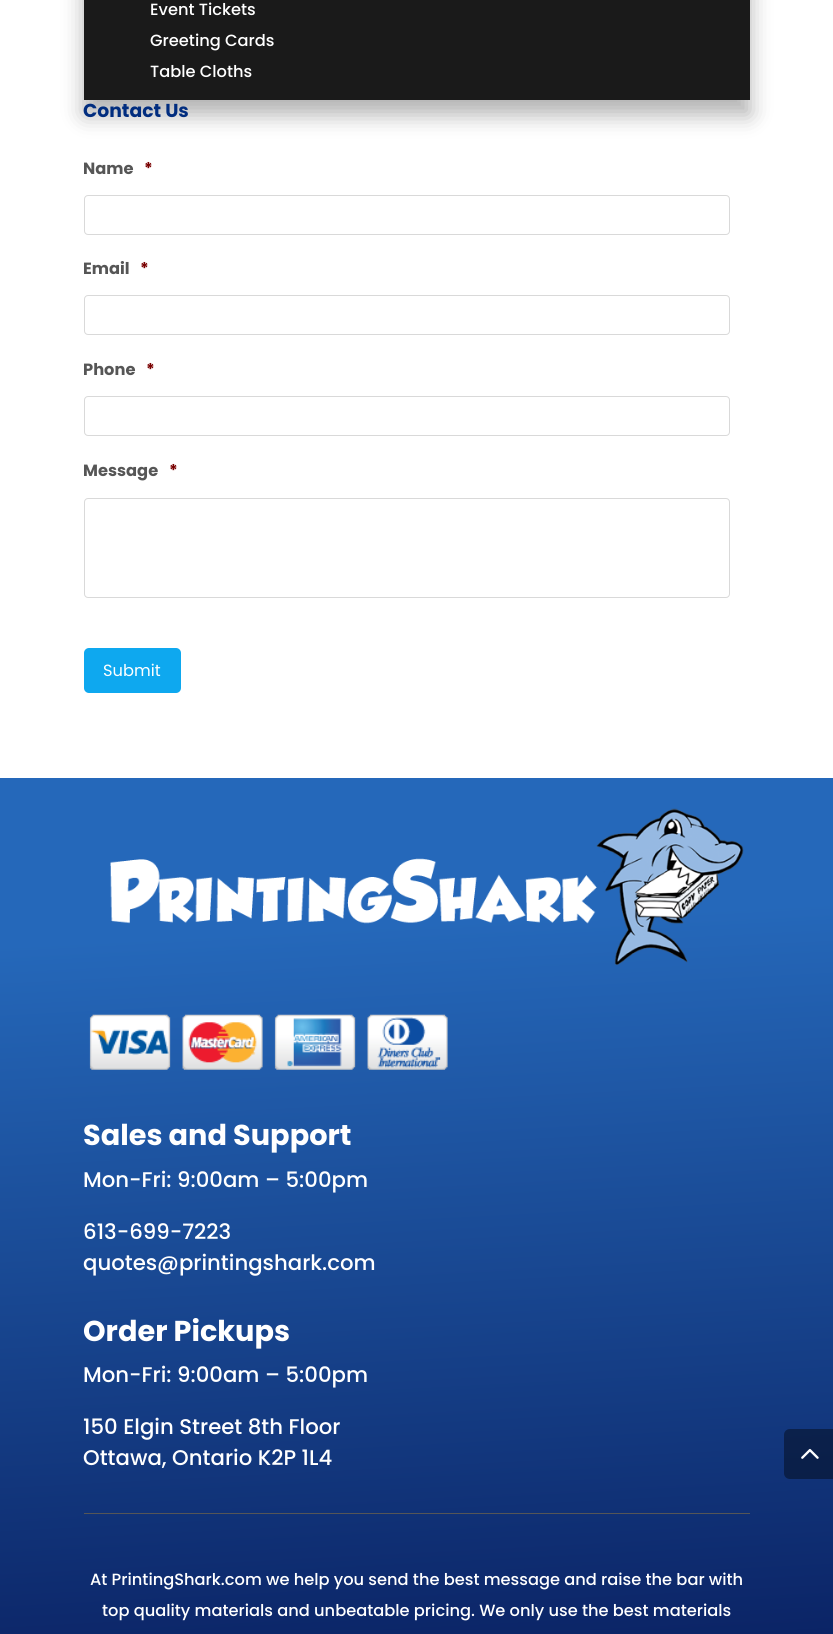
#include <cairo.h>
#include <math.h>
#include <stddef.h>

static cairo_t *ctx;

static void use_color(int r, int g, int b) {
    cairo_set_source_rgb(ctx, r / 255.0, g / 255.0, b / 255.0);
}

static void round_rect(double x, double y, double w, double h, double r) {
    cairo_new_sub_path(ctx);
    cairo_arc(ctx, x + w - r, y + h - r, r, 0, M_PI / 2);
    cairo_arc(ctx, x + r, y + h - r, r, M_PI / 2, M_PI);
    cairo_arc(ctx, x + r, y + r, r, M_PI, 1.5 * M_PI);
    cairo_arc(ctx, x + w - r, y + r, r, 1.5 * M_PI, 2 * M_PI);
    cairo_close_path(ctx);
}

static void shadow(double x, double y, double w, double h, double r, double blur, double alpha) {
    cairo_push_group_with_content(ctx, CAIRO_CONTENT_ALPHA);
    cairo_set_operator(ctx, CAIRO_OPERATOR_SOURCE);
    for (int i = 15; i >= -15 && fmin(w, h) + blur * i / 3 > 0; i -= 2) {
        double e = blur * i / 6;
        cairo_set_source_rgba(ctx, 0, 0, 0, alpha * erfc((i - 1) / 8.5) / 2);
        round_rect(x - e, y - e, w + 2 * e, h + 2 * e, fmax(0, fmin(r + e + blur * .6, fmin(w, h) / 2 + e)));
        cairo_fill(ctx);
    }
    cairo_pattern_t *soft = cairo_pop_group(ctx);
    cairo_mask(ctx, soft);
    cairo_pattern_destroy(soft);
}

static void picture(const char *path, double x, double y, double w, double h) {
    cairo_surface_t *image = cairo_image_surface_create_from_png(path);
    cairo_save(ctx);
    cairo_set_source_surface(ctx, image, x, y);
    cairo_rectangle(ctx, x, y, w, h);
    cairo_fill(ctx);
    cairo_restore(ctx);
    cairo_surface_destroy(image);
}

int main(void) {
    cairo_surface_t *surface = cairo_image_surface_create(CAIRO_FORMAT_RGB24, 833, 1634);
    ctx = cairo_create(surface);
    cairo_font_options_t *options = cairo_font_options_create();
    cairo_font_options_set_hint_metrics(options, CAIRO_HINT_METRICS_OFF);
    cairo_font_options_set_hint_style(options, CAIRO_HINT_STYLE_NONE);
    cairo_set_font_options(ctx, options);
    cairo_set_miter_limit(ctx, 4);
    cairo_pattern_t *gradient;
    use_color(255, 255, 255);
    cairo_paint(ctx);
    use_color(0, 0, 0);
    shadow(84, -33, 666, 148, 0, 11, 0.3);
    use_color(26, 26, 26);
    cairo_rectangle(ctx, 84, 0, 666, 100);
    cairo_fill(ctx);
    cairo_select_font_face(ctx, "Poppins Medium", CAIRO_FONT_SLANT_NORMAL, CAIRO_FONT_WEIGHT_NORMAL);
    cairo_set_font_size(ctx, 16.25);
    use_color(255, 255, 255);
    cairo_move_to(ctx, 150, 15);
    cairo_show_text(ctx, "Event Tickets");
    cairo_move_to(ctx, 150, 46);
    cairo_show_text(ctx, "Greeting Cards");
    cairo_move_to(ctx, 150, 77);
    cairo_show_text(ctx, "Table Cloths");
    cairo_select_font_face(ctx, "Poppins", CAIRO_FONT_SLANT_NORMAL, CAIRO_FONT_WEIGHT_BOLD);
    cairo_set_font_size(ctx, 18.75);
    use_color(1, 45, 127);
    cairo_move_to(ctx, 83, 117);
    cairo_show_text(ctx, "Contact Us");
    cairo_set_font_size(ctx, 16.25);
    use_color(86, 86, 86);
    cairo_move_to(ctx, 83, 174);
    cairo_show_text(ctx, "Name");
    use_color(121, 0, 0);
    cairo_move_to(ctx, 144, 174);
    cairo_show_text(ctx, "*");
    round_rect(84.5, 195.5, 645, 39, 3.5);
    use_color(217, 217, 217);
    cairo_set_line_width(ctx, 1);
    cairo_stroke(ctx);
    use_color(86, 86, 86);
    cairo_move_to(ctx, 83, 274);
    cairo_show_text(ctx, "Email");
    use_color(121, 0, 0);
    cairo_move_to(ctx, 140, 274);
    cairo_show_text(ctx, "*");
    round_rect(84.5, 295.5, 645, 39, 3.5);
    use_color(217, 217, 217);
    cairo_stroke(ctx);
    use_color(86, 86, 86);
    cairo_move_to(ctx, 83, 375);
    cairo_show_text(ctx, "Phone");
    use_color(121, 0, 0);
    cairo_move_to(ctx, 146, 375);
    cairo_show_text(ctx, "*");
    round_rect(84.5, 396.5, 645, 39, 3.5);
    use_color(217, 217, 217);
    cairo_stroke(ctx);
    use_color(86, 86, 86);
    cairo_move_to(ctx, 83, 476);
    cairo_show_text(ctx, "Message");
    use_color(121, 0, 0);
    cairo_move_to(ctx, 169, 476);
    cairo_show_text(ctx, "*");
    round_rect(84.5, 498.5, 645, 99, 3.5);
    use_color(217, 217, 217);
    cairo_stroke(ctx);
    use_color(14, 168, 239);
    round_rect(84, 648, 97, 45, 5);
    cairo_fill(ctx);
    cairo_select_font_face(ctx, "Poppins", CAIRO_FONT_SLANT_NORMAL, CAIRO_FONT_WEIGHT_NORMAL);
    use_color(255, 255, 255);
    cairo_move_to(ctx, 103, 676);
    cairo_show_text(ctx, "Submit");
    gradient = cairo_pattern_create_linear(388, 757, 446, 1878);
    cairo_pattern_add_color_stop_rgba(gradient, 0.15, 0.145, 0.408, 0.729, 1);
    cairo_pattern_add_color_stop_rgba(gradient, 1, 0.012, 0.059, 0.298, 1);
    cairo_set_source(ctx, gradient);
    cairo_pattern_destroy(gradient);
    cairo_rectangle(ctx, 0, 778, 833, 856);
    cairo_fill(ctx);
    picture("img1.png", 110, 808, 634, 157);
    picture("img2.png", 89, 1014, 359, 56);
    cairo_select_font_face(ctx, "Poppins", CAIRO_FONT_SLANT_NORMAL, CAIRO_FONT_WEIGHT_BOLD);
    cairo_set_font_size(ctx, 28.75);
    use_color(255, 255, 255);
    cairo_move_to(ctx, 83, 1145);
    cairo_show_text(ctx, "Sales and Support");
    cairo_select_font_face(ctx, "Poppins Medium", CAIRO_FONT_SLANT_NORMAL, CAIRO_FONT_WEIGHT_NORMAL);
    cairo_set_font_size(ctx, 21.25);
    cairo_move_to(ctx, 83, 1187);
    cairo_show_text(ctx, "Mon-Fri: 9:00am – 5:00pm");
    cairo_move_to(ctx, 83, 1239);
    cairo_show_text(ctx, "613-699-7223");
    cairo_move_to(ctx, 83, 1270);
    cairo_show_text(ctx, "quotes@printingshark.com");
    cairo_select_font_face(ctx, "Poppins", CAIRO_FONT_SLANT_NORMAL, CAIRO_FONT_WEIGHT_BOLD);
    cairo_set_font_size(ctx, 28.75);
    cairo_move_to(ctx, 83, 1341);
    cairo_show_text(ctx, "Order Pickups");
    cairo_select_font_face(ctx, "Poppins Medium", CAIRO_FONT_SLANT_NORMAL, CAIRO_FONT_WEIGHT_NORMAL);
    cairo_set_font_size(ctx, 21.25);
    cairo_move_to(ctx, 83, 1382);
    cairo_show_text(ctx, "Mon-Fri: 9:00am – 5:00pm");
    cairo_move_to(ctx, 83, 1434);
    cairo_show_text(ctx, "150 Elgin Street 8th Floor");
    cairo_move_to(ctx, 83, 1465);
    cairo_show_text(ctx, "Ottawa, Ontario K2P 1L4");
    use_color(86, 86, 86);
    cairo_rectangle(ctx, 84, 1513, 666, 1);
    cairo_fill(ctx);
    cairo_set_font_size(ctx, 16.25);
    use_color(255, 255, 255);
    cairo_move_to(ctx, 90, 1585);
    cairo_show_text(ctx, "At PrintingShark.com we help you send the best message and raise the bar with");
    cairo_move_to(ctx, 102, 1616);
    cairo_show_text(ctx, "top quality materials and unbeatable pricing. We only use the best materials");
    cairo_set_source_rgba(ctx, 0, 0, 0, 0.4);
    cairo_new_path(ctx);
    cairo_move_to(ctx, 790, 1429);
    cairo_line_to(ctx, 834, 1429);
    cairo_line_to(ctx, 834, 1479);
    cairo_line_to(ctx, 790, 1479);
    cairo_curve_to(ctx, 786.5, 1479, 784, 1476.5, 784, 1473);
    cairo_line_to(ctx, 784, 1435);
    cairo_curve_to(ctx, 784, 1431.5, 786.5, 1429, 790, 1429);
    cairo_close_path(ctx);
    cairo_fill(ctx);
    picture("img3.png", 801, 1448, 18, 11);
    cairo_surface_write_to_png(surface, "result.png");
    cairo_font_options_destroy(options);
    cairo_destroy(ctx);
    cairo_surface_destroy(surface);
    return 0;
}
